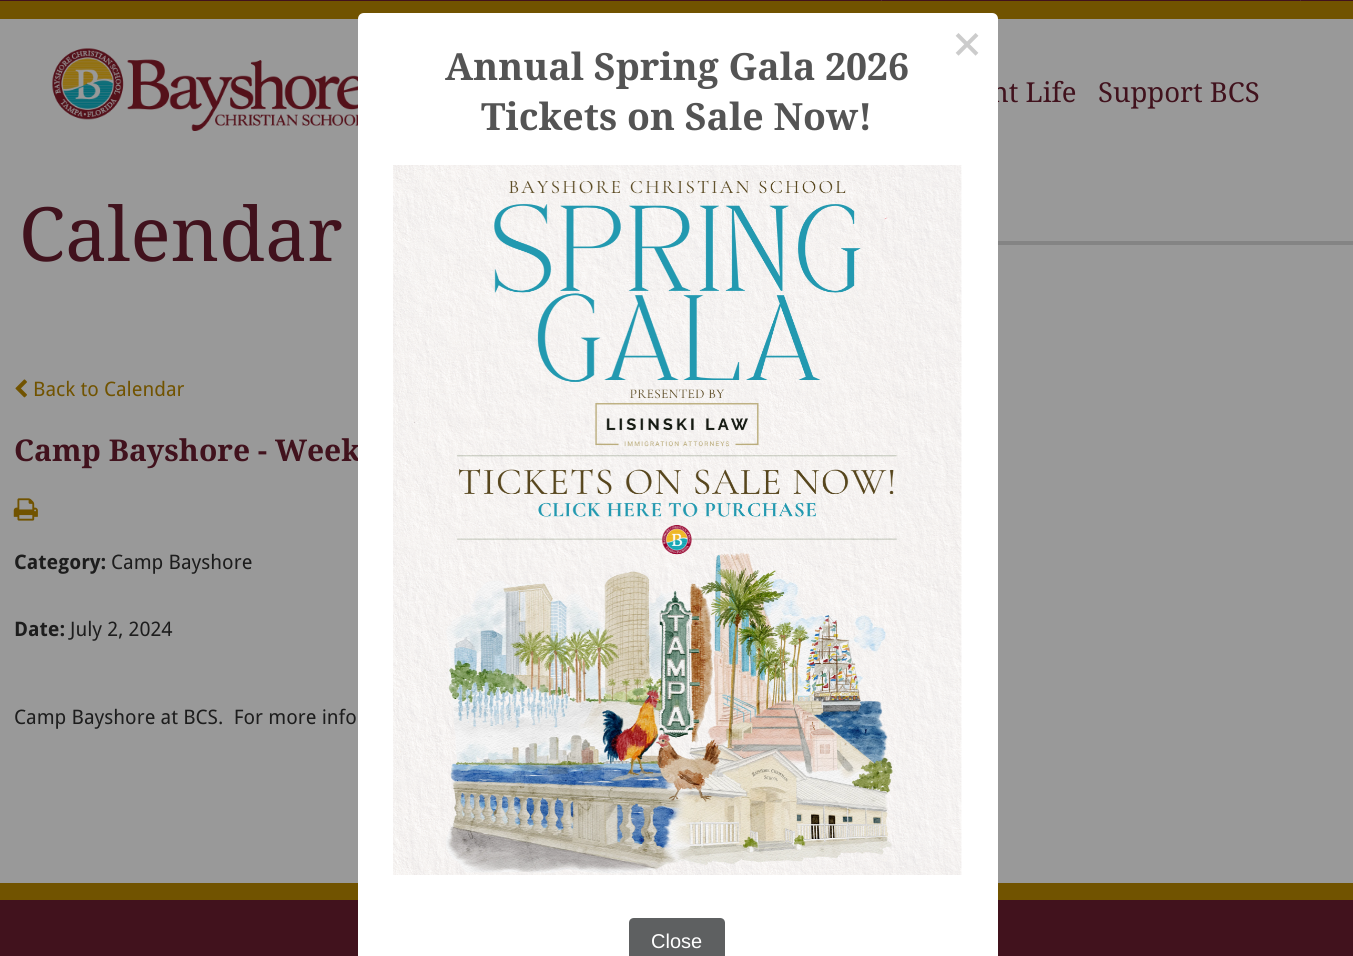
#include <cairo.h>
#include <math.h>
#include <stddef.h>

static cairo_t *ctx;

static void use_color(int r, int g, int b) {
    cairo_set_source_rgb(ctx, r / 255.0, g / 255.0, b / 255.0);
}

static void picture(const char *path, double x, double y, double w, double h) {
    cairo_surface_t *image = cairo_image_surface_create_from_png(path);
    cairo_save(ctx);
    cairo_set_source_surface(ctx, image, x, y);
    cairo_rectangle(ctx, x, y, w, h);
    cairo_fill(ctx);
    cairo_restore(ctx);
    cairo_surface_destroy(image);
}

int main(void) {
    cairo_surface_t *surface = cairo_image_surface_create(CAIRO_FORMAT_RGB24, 1353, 956);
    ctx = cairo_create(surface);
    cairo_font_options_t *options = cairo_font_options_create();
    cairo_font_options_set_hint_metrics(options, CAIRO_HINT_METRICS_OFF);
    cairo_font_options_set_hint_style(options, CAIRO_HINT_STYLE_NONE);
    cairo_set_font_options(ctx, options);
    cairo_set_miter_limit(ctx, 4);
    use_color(153, 153, 153);
    cairo_paint(ctx);
    use_color(113, 83, 0);
    cairo_rectangle(ctx, 0, 1, 1353, 18);
    cairo_fill(ctx);
    cairo_select_font_face(ctx, "Droid Serif", CAIRO_FONT_SLANT_NORMAL, CAIRO_FONT_WEIGHT_NORMAL);
    cairo_set_font_size(ctx, 27.5);
    use_color(65, 18, 29);
    cairo_move_to(ctx, 991, 102);
    cairo_show_text(ctx, "nt Life");
    cairo_select_font_face(ctx, "Droid Serif", CAIRO_FONT_SLANT_NORMAL, CAIRO_FONT_WEIGHT_BOLD);
    cairo_set_font_size(ctx, 30);
    cairo_move_to(ctx, 14, 461);
    cairo_show_text(ctx, "Camp Bayshore - Week");
    cairo_rectangle(ctx, 0, 900, 1353, 56);
    cairo_fill(ctx);
    use_color(113, 83, 0);
    cairo_rectangle(ctx, 0, 883, 1353, 17);
    cairo_fill(ctx);
    use_color(255, 255, 255);
    cairo_new_path(ctx);
    cairo_move_to(ctx, 364, 13);
    cairo_line_to(ctx, 992, 13);
    cairo_curve_to(ctx, 995.5, 13, 998, 15.5, 998, 19);
    cairo_line_to(ctx, 998, 956);
    cairo_line_to(ctx, 358, 956);
    cairo_line_to(ctx, 358, 19);
    cairo_curve_to(ctx, 358, 15.5, 360.5, 13, 364, 13);
    cairo_close_path(ctx);
    cairo_fill(ctx);
    cairo_select_font_face(ctx, "DejaVu Sans Mono", CAIRO_FONT_SLANT_NORMAL, CAIRO_FONT_WEIGHT_NORMAL);
    cairo_set_font_size(ctx, 50);
    use_color(204, 204, 204);
    cairo_move_to(ctx, 952, 60);
    cairo_show_text(ctx, "×");
    cairo_select_font_face(ctx, "Droid Serif", CAIRO_FONT_SLANT_NORMAL, CAIRO_FONT_WEIGHT_BOLD);
    cairo_set_font_size(ctx, 37.5);
    use_color(84, 84, 84);
    cairo_move_to(ctx, 445, 80);
    cairo_show_text(ctx, "Annual Spring Gala 2026");
    cairo_move_to(ctx, 481, 130);
    cairo_show_text(ctx, "Tickets on Sale Now!");
    picture("img1.png", 393, 165, 569, 710);
    use_color(94, 96, 97);
    cairo_new_path(ctx);
    cairo_move_to(ctx, 634, 918);
    cairo_line_to(ctx, 720, 918);
    cairo_curve_to(ctx, 723, 918, 725, 920, 725, 923);
    cairo_line_to(ctx, 725, 956);
    cairo_line_to(ctx, 629, 956);
    cairo_line_to(ctx, 629, 923);
    cairo_curve_to(ctx, 629, 920, 631, 918, 634, 918);
    cairo_close_path(ctx);
    cairo_fill(ctx);
    cairo_select_font_face(ctx, "Liberation Sans", CAIRO_FONT_SLANT_NORMAL, CAIRO_FONT_WEIGHT_NORMAL);
    cairo_set_font_size(ctx, 20);
    use_color(255, 255, 255);
    cairo_move_to(ctx, 651, 948);
    cairo_show_text(ctx, "Close");
    use_color(65, 18, 29);
    cairo_rectangle(ctx, 0, 0, 1353, 1);
    cairo_fill(ctx);
    use_color(79, 38, 48);
    cairo_rectangle(ctx, 1300, 0, 1, 1);
    cairo_fill(ctx);
    cairo_rectangle(ctx, 881, 0, 1, 1);
    cairo_fill(ctx);
    picture("img2.png", 52, 48, 306, 83);
    cairo_select_font_face(ctx, "Droid Serif", CAIRO_FONT_SLANT_NORMAL, CAIRO_FONT_WEIGHT_NORMAL);
    cairo_set_font_size(ctx, 27.5);
    use_color(65, 18, 29);
    cairo_move_to(ctx, 1098, 102);
    cairo_show_text(ctx, "Support BCS");
    cairo_set_font_size(ctx, 75);
    cairo_move_to(ctx, 19, 261);
    cairo_show_text(ctx, "Calendar");
    use_color(132, 132, 132);
    cairo_rectangle(ctx, 998, 241, 355, 4);
    cairo_fill(ctx);
    picture("img3.png", 15, 379, 12, 19);
    cairo_select_font_face(ctx, "Droid Sans", CAIRO_FONT_SLANT_NORMAL, CAIRO_FONT_WEIGHT_NORMAL);
    cairo_set_font_size(ctx, 20);
    use_color(113, 83, 0);
    cairo_move_to(ctx, 33, 396);
    cairo_show_text(ctx, "Back to Calendar");
    picture("img4.png", 13, 498, 25, 23);
    cairo_select_font_face(ctx, "Droid Sans", CAIRO_FONT_SLANT_NORMAL, CAIRO_FONT_WEIGHT_BOLD);
    use_color(29, 29, 29);
    cairo_move_to(ctx, 14, 569);
    cairo_show_text(ctx, "Category:");
    cairo_select_font_face(ctx, "Droid Sans", CAIRO_FONT_SLANT_NORMAL, CAIRO_FONT_WEIGHT_NORMAL);
    cairo_move_to(ctx, 111, 569);
    cairo_show_text(ctx, "Camp Bayshore");
    cairo_select_font_face(ctx, "Droid Sans", CAIRO_FONT_SLANT_NORMAL, CAIRO_FONT_WEIGHT_BOLD);
    cairo_move_to(ctx, 14, 636);
    cairo_show_text(ctx, "Date:");
    cairo_select_font_face(ctx, "Droid Sans", CAIRO_FONT_SLANT_NORMAL, CAIRO_FONT_WEIGHT_NORMAL);
    cairo_move_to(ctx, 70, 636);
    cairo_show_text(ctx, "July 2, 2024");
    cairo_move_to(ctx, 14, 724);
    cairo_show_text(ctx, "Camp Bayshore at BCS.  For more info");
    cairo_surface_write_to_png(surface, "result.png");
    cairo_font_options_destroy(options);
    cairo_destroy(ctx);
    cairo_surface_destroy(surface);
    return 0;
}
